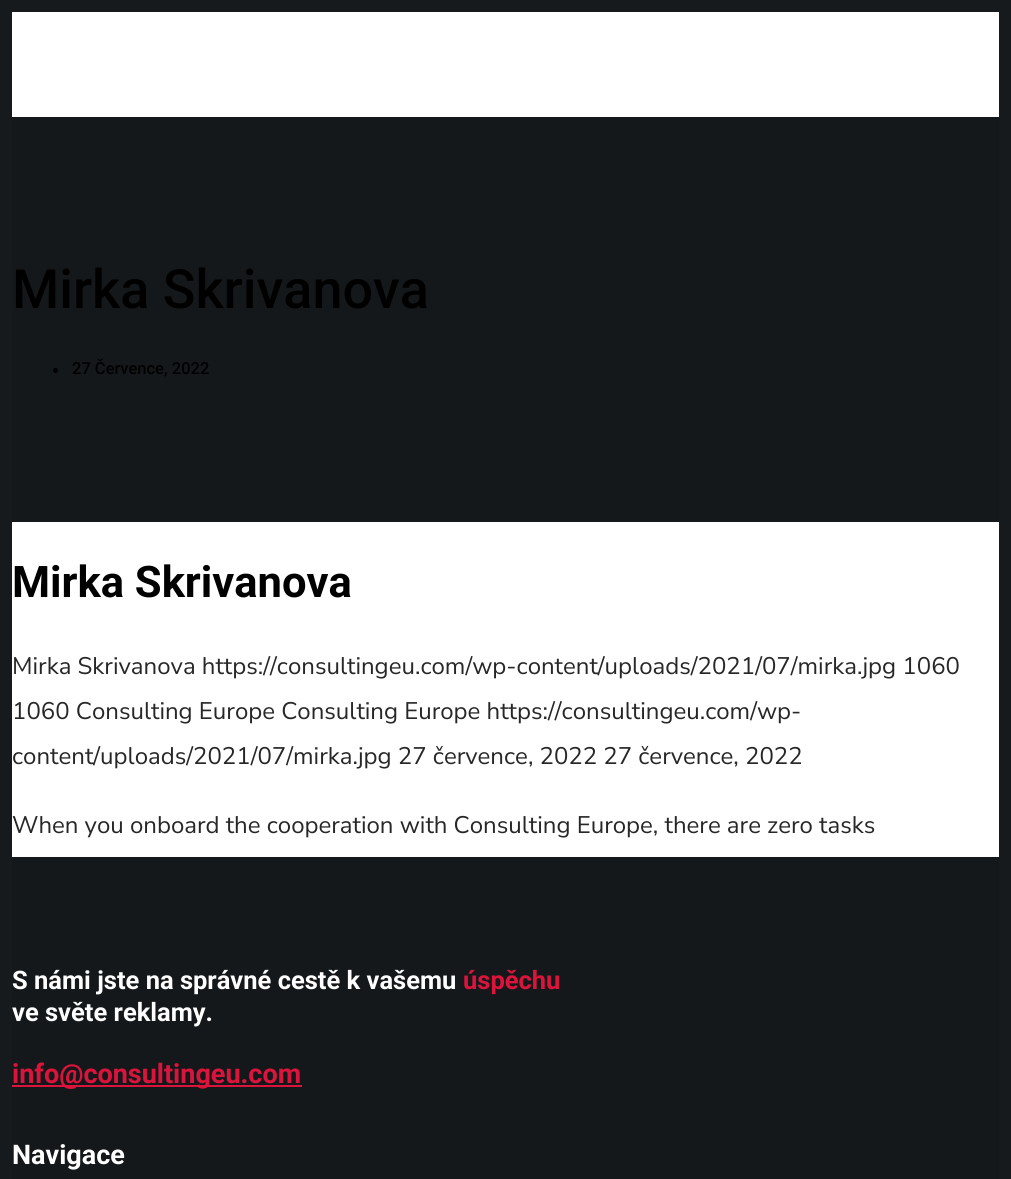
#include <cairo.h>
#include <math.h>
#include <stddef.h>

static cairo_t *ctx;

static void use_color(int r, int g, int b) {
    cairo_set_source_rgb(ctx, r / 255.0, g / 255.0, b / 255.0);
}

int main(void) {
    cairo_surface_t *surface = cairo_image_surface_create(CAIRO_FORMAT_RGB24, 1011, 1179);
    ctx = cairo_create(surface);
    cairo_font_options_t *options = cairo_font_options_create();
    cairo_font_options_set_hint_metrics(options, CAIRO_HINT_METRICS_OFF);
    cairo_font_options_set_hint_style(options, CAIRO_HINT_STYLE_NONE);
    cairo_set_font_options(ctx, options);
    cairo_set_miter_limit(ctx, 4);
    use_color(23, 26, 29);
    cairo_paint(ctx);
    use_color(255, 255, 255);
    cairo_rectangle(ctx, 12, 12, 987, 105);
    cairo_fill(ctx);
    cairo_rectangle(ctx, 12, 522, 987, 335);
    cairo_fill(ctx);
    use_color(20, 24, 26);
    cairo_rectangle(ctx, 12, 117, 987, 405);
    cairo_fill(ctx);
    cairo_select_font_face(ctx, "Roboto Medium", CAIRO_FONT_SLANT_NORMAL, CAIRO_FONT_WEIGHT_NORMAL);
    cairo_set_font_size(ctx, 54);
    use_color(0, 0, 0);
    cairo_move_to(ctx, 12, 308);
    cairo_show_text(ctx, "Mirka Skrivanova");
    cairo_new_path(ctx);
    cairo_arc(ctx, 55.5, 370.5, 2.5, 0, 2 * M_PI);
    cairo_fill(ctx);
    cairo_set_font_size(ctx, 16.5);
    cairo_move_to(ctx, 72, 374);
    cairo_show_text(ctx, "27 Července, 2022");
    cairo_select_font_face(ctx, "Roboto", CAIRO_FONT_SLANT_NORMAL, CAIRO_FONT_WEIGHT_BOLD);
    cairo_set_font_size(ctx, 43.5);
    cairo_move_to(ctx, 12, 597);
    cairo_show_text(ctx, "Mirka Skrivanova");
    cairo_select_font_face(ctx, "Nunito Sans", CAIRO_FONT_SLANT_NORMAL, CAIRO_FONT_WEIGHT_NORMAL);
    cairo_set_font_size(ctx, 24);
    use_color(39, 39, 39);
    cairo_move_to(ctx, 12, 674);
    cairo_show_text(ctx, "Mirka Skrivanova https://consultingeu.com/wp-content/uploads/2021/07/mirka.jpg 1060");
    cairo_move_to(ctx, 12, 719);
    cairo_show_text(ctx, "1060 Consulting Europe Consulting Europe https://consultingeu.com/wp-");
    cairo_move_to(ctx, 12, 764);
    cairo_show_text(ctx, "content/uploads/2021/07/mirka.jpg 27 července, 2022 27 července, 2022");
    cairo_move_to(ctx, 12, 833);
    cairo_show_text(ctx, "When you onboard the cooperation with Consulting Europe, there are zero tasks");
    use_color(20, 24, 26);
    cairo_rectangle(ctx, 12, 857, 987, 322);
    cairo_fill(ctx);
    cairo_select_font_face(ctx, "Roboto", CAIRO_FONT_SLANT_NORMAL, CAIRO_FONT_WEIGHT_BOLD);
    cairo_set_font_size(ctx, 25.5);
    use_color(255, 255, 255);
    cairo_move_to(ctx, 12, 989);
    cairo_show_text(ctx, "S námi jste na správné cestě k vašemu");
    use_color(220, 20, 60);
    cairo_move_to(ctx, 463, 989);
    cairo_show_text(ctx, "úspěchu");
    use_color(255, 255, 255);
    cairo_move_to(ctx, 12, 1021);
    cairo_show_text(ctx, "ve světe reklamy.");
    use_color(220, 20, 60);
    cairo_rectangle(ctx, 12, 1085, 290, 2);
    cairo_fill(ctx);
    cairo_set_font_size(ctx, 27);
    cairo_move_to(ctx, 12, 1083);
    cairo_show_text(ctx, "info@consultingeu.com");
    use_color(255, 255, 255);
    cairo_move_to(ctx, 12, 1164);
    cairo_show_text(ctx, "Navigace");
    cairo_surface_write_to_png(surface, "result.png");
    cairo_font_options_destroy(options);
    cairo_destroy(ctx);
    cairo_surface_destroy(surface);
    return 0;
}
